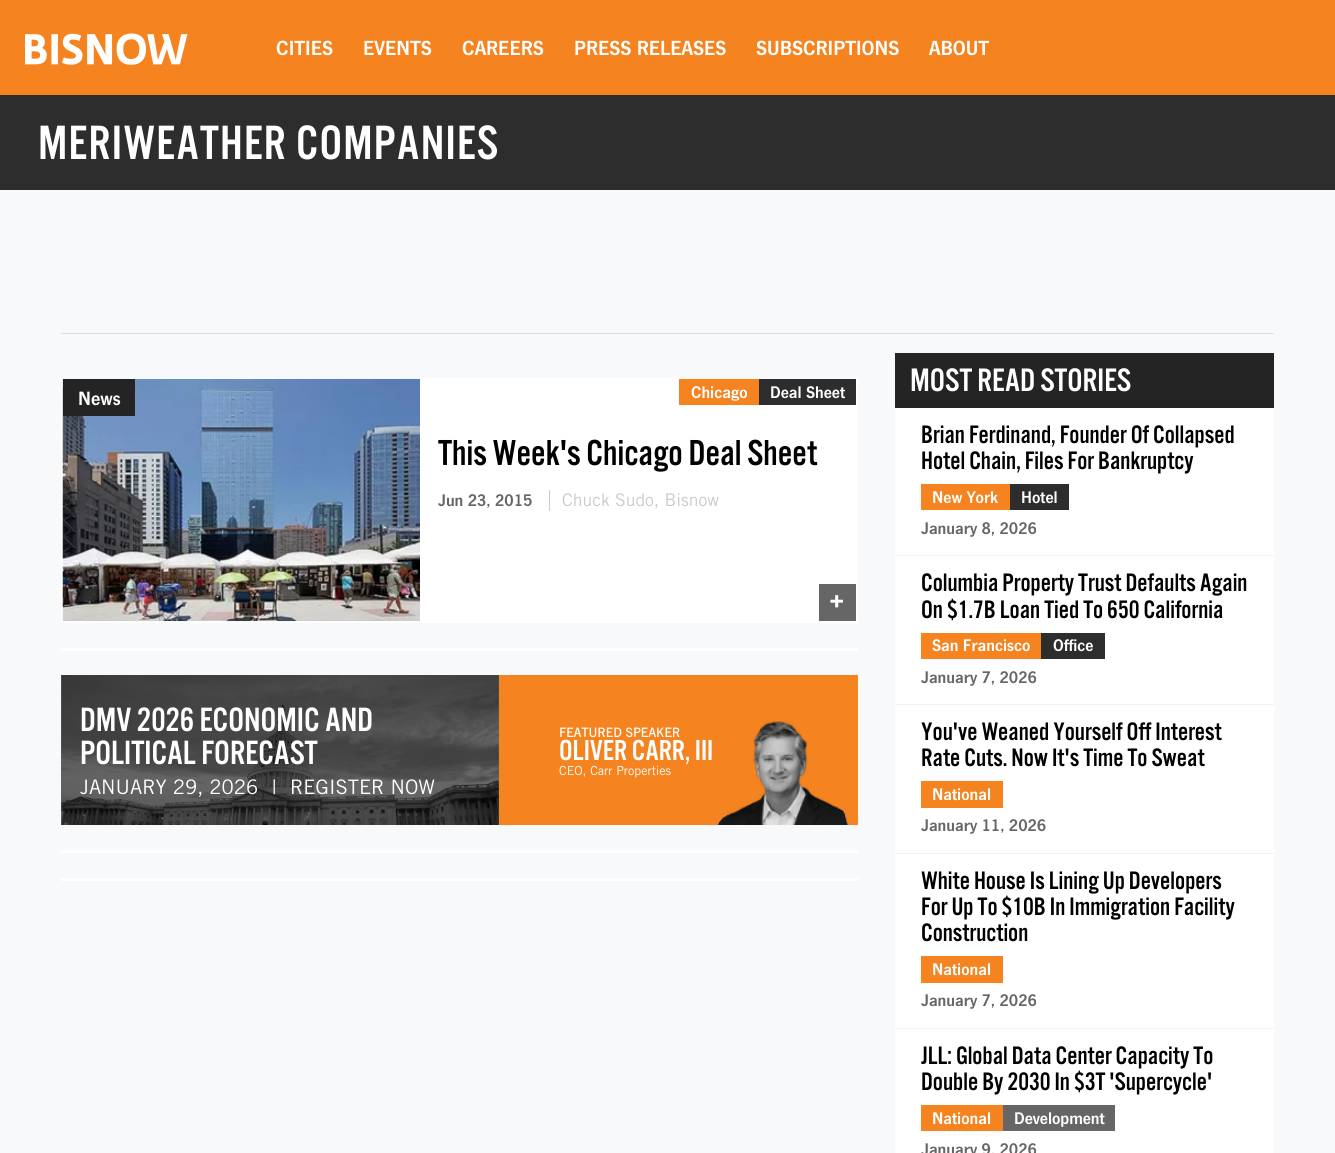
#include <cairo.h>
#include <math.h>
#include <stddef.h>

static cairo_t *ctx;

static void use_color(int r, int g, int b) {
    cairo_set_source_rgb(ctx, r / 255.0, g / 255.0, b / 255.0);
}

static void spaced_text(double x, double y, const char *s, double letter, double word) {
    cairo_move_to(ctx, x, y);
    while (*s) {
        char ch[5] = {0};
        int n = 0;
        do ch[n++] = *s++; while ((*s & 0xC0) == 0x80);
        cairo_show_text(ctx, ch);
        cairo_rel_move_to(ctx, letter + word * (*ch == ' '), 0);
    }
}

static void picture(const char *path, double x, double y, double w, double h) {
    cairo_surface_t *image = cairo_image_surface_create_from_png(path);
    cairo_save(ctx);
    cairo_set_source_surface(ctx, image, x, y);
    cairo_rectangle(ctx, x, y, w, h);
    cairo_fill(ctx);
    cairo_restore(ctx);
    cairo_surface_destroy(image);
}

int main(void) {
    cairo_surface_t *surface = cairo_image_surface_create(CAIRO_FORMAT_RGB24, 1335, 1153);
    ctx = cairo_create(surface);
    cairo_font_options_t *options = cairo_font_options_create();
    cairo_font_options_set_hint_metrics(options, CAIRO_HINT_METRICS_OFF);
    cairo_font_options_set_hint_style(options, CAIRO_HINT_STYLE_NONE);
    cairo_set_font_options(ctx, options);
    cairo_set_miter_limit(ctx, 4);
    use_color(248, 249, 250);
    cairo_paint(ctx);
    use_color(99, 100, 100);
    cairo_rectangle(ctx, 61, 675, 438, 150);
    cairo_fill(ctx);
    use_color(245, 131, 32);
    cairo_rectangle(ctx, 0, 0, 1335, 95);
    cairo_fill(ctx);
    picture("img1.png", 25, 33, 163, 32);
    cairo_select_font_face(ctx, "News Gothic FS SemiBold", CAIRO_FONT_SLANT_NORMAL, CAIRO_FONT_WEIGHT_NORMAL);
    cairo_set_font_size(ctx, 21.25);
    use_color(255, 255, 255);
    cairo_move_to(ctx, 276, 55);
    cairo_show_text(ctx, "CITIES");
    cairo_move_to(ctx, 363, 55);
    cairo_show_text(ctx, "EVENTS");
    cairo_move_to(ctx, 462, 55);
    cairo_show_text(ctx, "CAREERS");
    cairo_move_to(ctx, 574, 55);
    cairo_show_text(ctx, "PRESS RELEASES");
    cairo_move_to(ctx, 756, 55);
    cairo_show_text(ctx, "SUBSCRIPTIONS");
    cairo_move_to(ctx, 929, 55);
    cairo_show_text(ctx, "ABOUT");
    use_color(45, 45, 45);
    cairo_rectangle(ctx, 0, 95, 1335, 95);
    cairo_fill(ctx);
    cairo_select_font_face(ctx, "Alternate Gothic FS", CAIRO_FONT_SLANT_NORMAL, CAIRO_FONT_WEIGHT_NORMAL);
    cairo_set_font_size(ctx, 50);
    use_color(255, 255, 255);
    spaced_text(38, 159, "MERIWEATHER COMPANIES", 1.25, 0);
    use_color(221, 221, 221);
    cairo_rectangle(ctx, 61, 333, 1213, 1);
    cairo_fill(ctx);
    use_color(255, 255, 255);
    cairo_rectangle(ctx, 61, 378, 797, 245);
    cairo_fill(ctx);
    picture("img2.png", 62, 378, 358, 244);
    use_color(36, 36, 36);
    cairo_rectangle(ctx, 63, 379, 72, 37);
    cairo_fill(ctx);
    cairo_select_font_face(ctx, "News Gothic FS SemiBold", CAIRO_FONT_SLANT_NORMAL, CAIRO_FONT_WEIGHT_NORMAL);
    cairo_set_font_size(ctx, 20);
    use_color(255, 255, 255);
    cairo_move_to(ctx, 78, 405);
    cairo_show_text(ctx, "News");
    use_color(245, 131, 32);
    cairo_rectangle(ctx, 679, 379, 80, 26);
    cairo_fill(ctx);
    cairo_set_font_size(ctx, 17.5);
    use_color(255, 255, 255);
    cairo_move_to(ctx, 691, 398);
    cairo_show_text(ctx, "Chicago");
    use_color(45, 45, 45);
    cairo_rectangle(ctx, 759, 379, 97, 26);
    cairo_fill(ctx);
    use_color(255, 255, 255);
    cairo_move_to(ctx, 770, 398);
    cairo_show_text(ctx, "Deal Sheet");
    cairo_select_font_face(ctx, "Alternate Gothic FS", CAIRO_FONT_SLANT_NORMAL, CAIRO_FONT_WEIGHT_NORMAL);
    cairo_set_font_size(ctx, 37.5);
    use_color(0, 0, 0);
    cairo_move_to(ctx, 438, 465);
    cairo_show_text(ctx, "This Week's Chicago Deal Sheet");
    cairo_select_font_face(ctx, "News Gothic FS SemiBold", CAIRO_FONT_SLANT_NORMAL, CAIRO_FONT_WEIGHT_NORMAL);
    cairo_set_font_size(ctx, 17.5);
    use_color(102, 102, 102);
    cairo_move_to(ctx, 438, 506);
    cairo_show_text(ctx, "Jun 23, 2015");
    use_color(202, 202, 202);
    cairo_rectangle(ctx, 549, 490, 1, 21);
    cairo_fill(ctx);
    cairo_select_font_face(ctx, "Trade Gothic", CAIRO_FONT_SLANT_NORMAL, CAIRO_FONT_WEIGHT_NORMAL);
    cairo_move_to(ctx, 562, 506);
    cairo_show_text(ctx, "Chuck Sudo, Bisnow");
    use_color(102, 102, 102);
    cairo_rectangle(ctx, 819, 584, 37, 37);
    cairo_fill(ctx);
    cairo_select_font_face(ctx, "Alternate Gothic FS", CAIRO_FONT_SLANT_NORMAL, CAIRO_FONT_WEIGHT_NORMAL);
    cairo_set_font_size(ctx, 37.5);
    use_color(255, 255, 255);
    cairo_move_to(ctx, 829, 614);
    cairo_show_text(ctx, "+");
    cairo_rectangle(ctx, 61, 648, 797, 3);
    cairo_fill(ctx);
    picture("img3.png", 61, 675, 438, 150);
    cairo_set_font_size(ctx, 35);
    cairo_move_to(ctx, 80, 731);
    cairo_show_text(ctx, "DMV 2026 ECONOMIC AND");
    cairo_move_to(ctx, 80, 764);
    cairo_show_text(ctx, "POLITICAL FORECAST");
    cairo_select_font_face(ctx, "Trade Gothic", CAIRO_FONT_SLANT_NORMAL, CAIRO_FONT_WEIGHT_NORMAL);
    cairo_set_font_size(ctx, 20);
    cairo_move_to(ctx, 80, 794);
    cairo_show_text(ctx, "JANUARY 29, 2026");
    cairo_move_to(ctx, 272, 794);
    cairo_show_text(ctx, "|");
    cairo_move_to(ctx, 290, 794);
    cairo_show_text(ctx, "REGISTER NOW");
    use_color(245, 131, 32);
    cairo_rectangle(ctx, 499, 675, 359, 150);
    cairo_fill(ctx);
    cairo_select_font_face(ctx, "Trade Gothic", CAIRO_FONT_SLANT_NORMAL, CAIRO_FONT_WEIGHT_BOLD);
    cairo_set_font_size(ctx, 12.5);
    use_color(255, 255, 255);
    cairo_move_to(ctx, 559, 737);
    cairo_show_text(ctx, "FEATURED SPEAKER");
    cairo_select_font_face(ctx, "Alternate Gothic FS", CAIRO_FONT_SLANT_NORMAL, CAIRO_FONT_WEIGHT_NORMAL);
    cairo_set_font_size(ctx, 30);
    cairo_move_to(ctx, 559, 760);
    cairo_show_text(ctx, "OLIVER CARR, III");
    cairo_select_font_face(ctx, "Trade Gothic", CAIRO_FONT_SLANT_NORMAL, CAIRO_FONT_WEIGHT_NORMAL);
    cairo_set_font_size(ctx, 12.5);
    cairo_move_to(ctx, 559, 775);
    cairo_show_text(ctx, "CEO, Carr Properties");
    picture("img4.png", 717, 721, 132, 104);
    cairo_rectangle(ctx, 61, 850, 797, 3);
    cairo_fill(ctx);
    cairo_rectangle(ctx, 61, 878, 797, 3);
    cairo_fill(ctx);
    cairo_rectangle(ctx, 895, 408, 379, 745);
    cairo_fill(ctx);
    use_color(36, 36, 36);
    cairo_rectangle(ctx, 895, 353, 379, 55);
    cairo_fill(ctx);
    cairo_select_font_face(ctx, "Alternate Gothic FS", CAIRO_FONT_SLANT_NORMAL, CAIRO_FONT_WEIGHT_NORMAL);
    cairo_set_font_size(ctx, 33.75);
    use_color(255, 255, 255);
    cairo_move_to(ctx, 910, 391);
    cairo_show_text(ctx, "MOST READ STORIES");
    cairo_set_font_size(ctx, 26.25);
    use_color(0, 0, 0);
    cairo_move_to(ctx, 921, 443);
    cairo_show_text(ctx, "Brian Ferdinand, Founder Of Collapsed");
    cairo_move_to(ctx, 921, 469);
    cairo_show_text(ctx, "Hotel Chain, Files For Bankruptcy");
    use_color(245, 131, 32);
    cairo_rectangle(ctx, 921, 484, 89, 26);
    cairo_fill(ctx);
    cairo_select_font_face(ctx, "News Gothic FS SemiBold", CAIRO_FONT_SLANT_NORMAL, CAIRO_FONT_WEIGHT_NORMAL);
    cairo_set_font_size(ctx, 17.5);
    use_color(255, 255, 255);
    cairo_move_to(ctx, 932, 503);
    cairo_show_text(ctx, "New York");
    use_color(45, 45, 45);
    cairo_rectangle(ctx, 1010, 484, 59, 26);
    cairo_fill(ctx);
    use_color(255, 255, 255);
    cairo_move_to(ctx, 1021, 503);
    cairo_show_text(ctx, "Hotel");
    use_color(102, 102, 102);
    cairo_move_to(ctx, 921, 534);
    cairo_show_text(ctx, "January 8, 2026");
    use_color(240, 243, 243);
    cairo_rectangle(ctx, 895, 555, 379, 1);
    cairo_fill(ctx);
    cairo_select_font_face(ctx, "Alternate Gothic FS", CAIRO_FONT_SLANT_NORMAL, CAIRO_FONT_WEIGHT_NORMAL);
    cairo_set_font_size(ctx, 26.25);
    use_color(0, 0, 0);
    cairo_move_to(ctx, 921, 591);
    cairo_show_text(ctx, "Columbia Property Trust Defaults Again");
    cairo_move_to(ctx, 921, 618);
    cairo_show_text(ctx, "On $1.7B Loan Tied To 650 California");
    use_color(245, 131, 32);
    cairo_rectangle(ctx, 921, 633, 120, 26);
    cairo_fill(ctx);
    cairo_select_font_face(ctx, "News Gothic FS SemiBold", CAIRO_FONT_SLANT_NORMAL, CAIRO_FONT_WEIGHT_NORMAL);
    cairo_set_font_size(ctx, 17.5);
    use_color(255, 255, 255);
    cairo_move_to(ctx, 932, 651);
    cairo_show_text(ctx, "San Francisco");
    use_color(45, 45, 45);
    cairo_rectangle(ctx, 1041, 633, 64, 26);
    cairo_fill(ctx);
    use_color(255, 255, 255);
    cairo_move_to(ctx, 1053, 651);
    cairo_show_text(ctx, "Office");
    use_color(102, 102, 102);
    cairo_move_to(ctx, 921, 683);
    cairo_show_text(ctx, "January 7, 2026");
    use_color(240, 243, 243);
    cairo_rectangle(ctx, 895, 704, 379, 1);
    cairo_fill(ctx);
    cairo_select_font_face(ctx, "Alternate Gothic FS", CAIRO_FONT_SLANT_NORMAL, CAIRO_FONT_WEIGHT_NORMAL);
    cairo_set_font_size(ctx, 26.25);
    use_color(0, 0, 0);
    cairo_move_to(ctx, 921, 740);
    cairo_show_text(ctx, "You've Weaned Yourself Off Interest");
    cairo_move_to(ctx, 921, 766);
    cairo_show_text(ctx, "Rate Cuts. Now It's Time To Sweat");
    use_color(245, 131, 32);
    cairo_rectangle(ctx, 921, 781, 82, 27);
    cairo_fill(ctx);
    cairo_select_font_face(ctx, "News Gothic FS SemiBold", CAIRO_FONT_SLANT_NORMAL, CAIRO_FONT_WEIGHT_NORMAL);
    cairo_set_font_size(ctx, 17.5);
    use_color(255, 255, 255);
    cairo_move_to(ctx, 932, 800);
    cairo_show_text(ctx, "National");
    use_color(102, 102, 102);
    cairo_move_to(ctx, 921, 831);
    cairo_show_text(ctx, "January 11, 2026");
    use_color(240, 243, 243);
    cairo_rectangle(ctx, 895, 853, 379, 1);
    cairo_fill(ctx);
    cairo_select_font_face(ctx, "Alternate Gothic FS", CAIRO_FONT_SLANT_NORMAL, CAIRO_FONT_WEIGHT_NORMAL);
    cairo_set_font_size(ctx, 26.25);
    use_color(0, 0, 0);
    cairo_move_to(ctx, 921, 889);
    cairo_show_text(ctx, "White House Is Lining Up Developers");
    cairo_move_to(ctx, 921, 915);
    cairo_show_text(ctx, "For Up To $10B In Immigration Facility");
    cairo_move_to(ctx, 921, 941);
    cairo_show_text(ctx, "Construction");
    use_color(245, 131, 32);
    cairo_rectangle(ctx, 921, 956, 82, 27);
    cairo_fill(ctx);
    cairo_select_font_face(ctx, "News Gothic FS SemiBold", CAIRO_FONT_SLANT_NORMAL, CAIRO_FONT_WEIGHT_NORMAL);
    cairo_set_font_size(ctx, 17.5);
    use_color(255, 255, 255);
    cairo_move_to(ctx, 932, 975);
    cairo_show_text(ctx, "National");
    use_color(102, 102, 102);
    cairo_move_to(ctx, 921, 1006);
    cairo_show_text(ctx, "January 7, 2026");
    use_color(240, 243, 243);
    cairo_rectangle(ctx, 895, 1028, 379, 1);
    cairo_fill(ctx);
    cairo_select_font_face(ctx, "Alternate Gothic FS", CAIRO_FONT_SLANT_NORMAL, CAIRO_FONT_WEIGHT_NORMAL);
    cairo_set_font_size(ctx, 26.25);
    use_color(0, 0, 0);
    cairo_move_to(ctx, 921, 1064);
    cairo_show_text(ctx, "JLL: Global Data Center Capacity To");
    cairo_move_to(ctx, 921, 1090);
    cairo_show_text(ctx, "Double By 2030 In $3T 'Supercycle'");
    use_color(245, 131, 32);
    cairo_rectangle(ctx, 921, 1105, 82, 26);
    cairo_fill(ctx);
    cairo_select_font_face(ctx, "News Gothic FS SemiBold", CAIRO_FONT_SLANT_NORMAL, CAIRO_FONT_WEIGHT_NORMAL);
    cairo_set_font_size(ctx, 17.5);
    use_color(255, 255, 255);
    cairo_move_to(ctx, 932, 1124);
    cairo_show_text(ctx, "National");
    use_color(102, 102, 102);
    cairo_rectangle(ctx, 1003, 1105, 112, 26);
    cairo_fill(ctx);
    use_color(255, 255, 255);
    cairo_move_to(ctx, 1014, 1124);
    cairo_show_text(ctx, "Development");
    use_color(102, 102, 102);
    cairo_move_to(ctx, 921, 1155);
    cairo_show_text(ctx, "January 9, 2026");
    cairo_surface_write_to_png(surface, "result.png");
    cairo_font_options_destroy(options);
    cairo_destroy(ctx);
    cairo_surface_destroy(surface);
    return 0;
}
